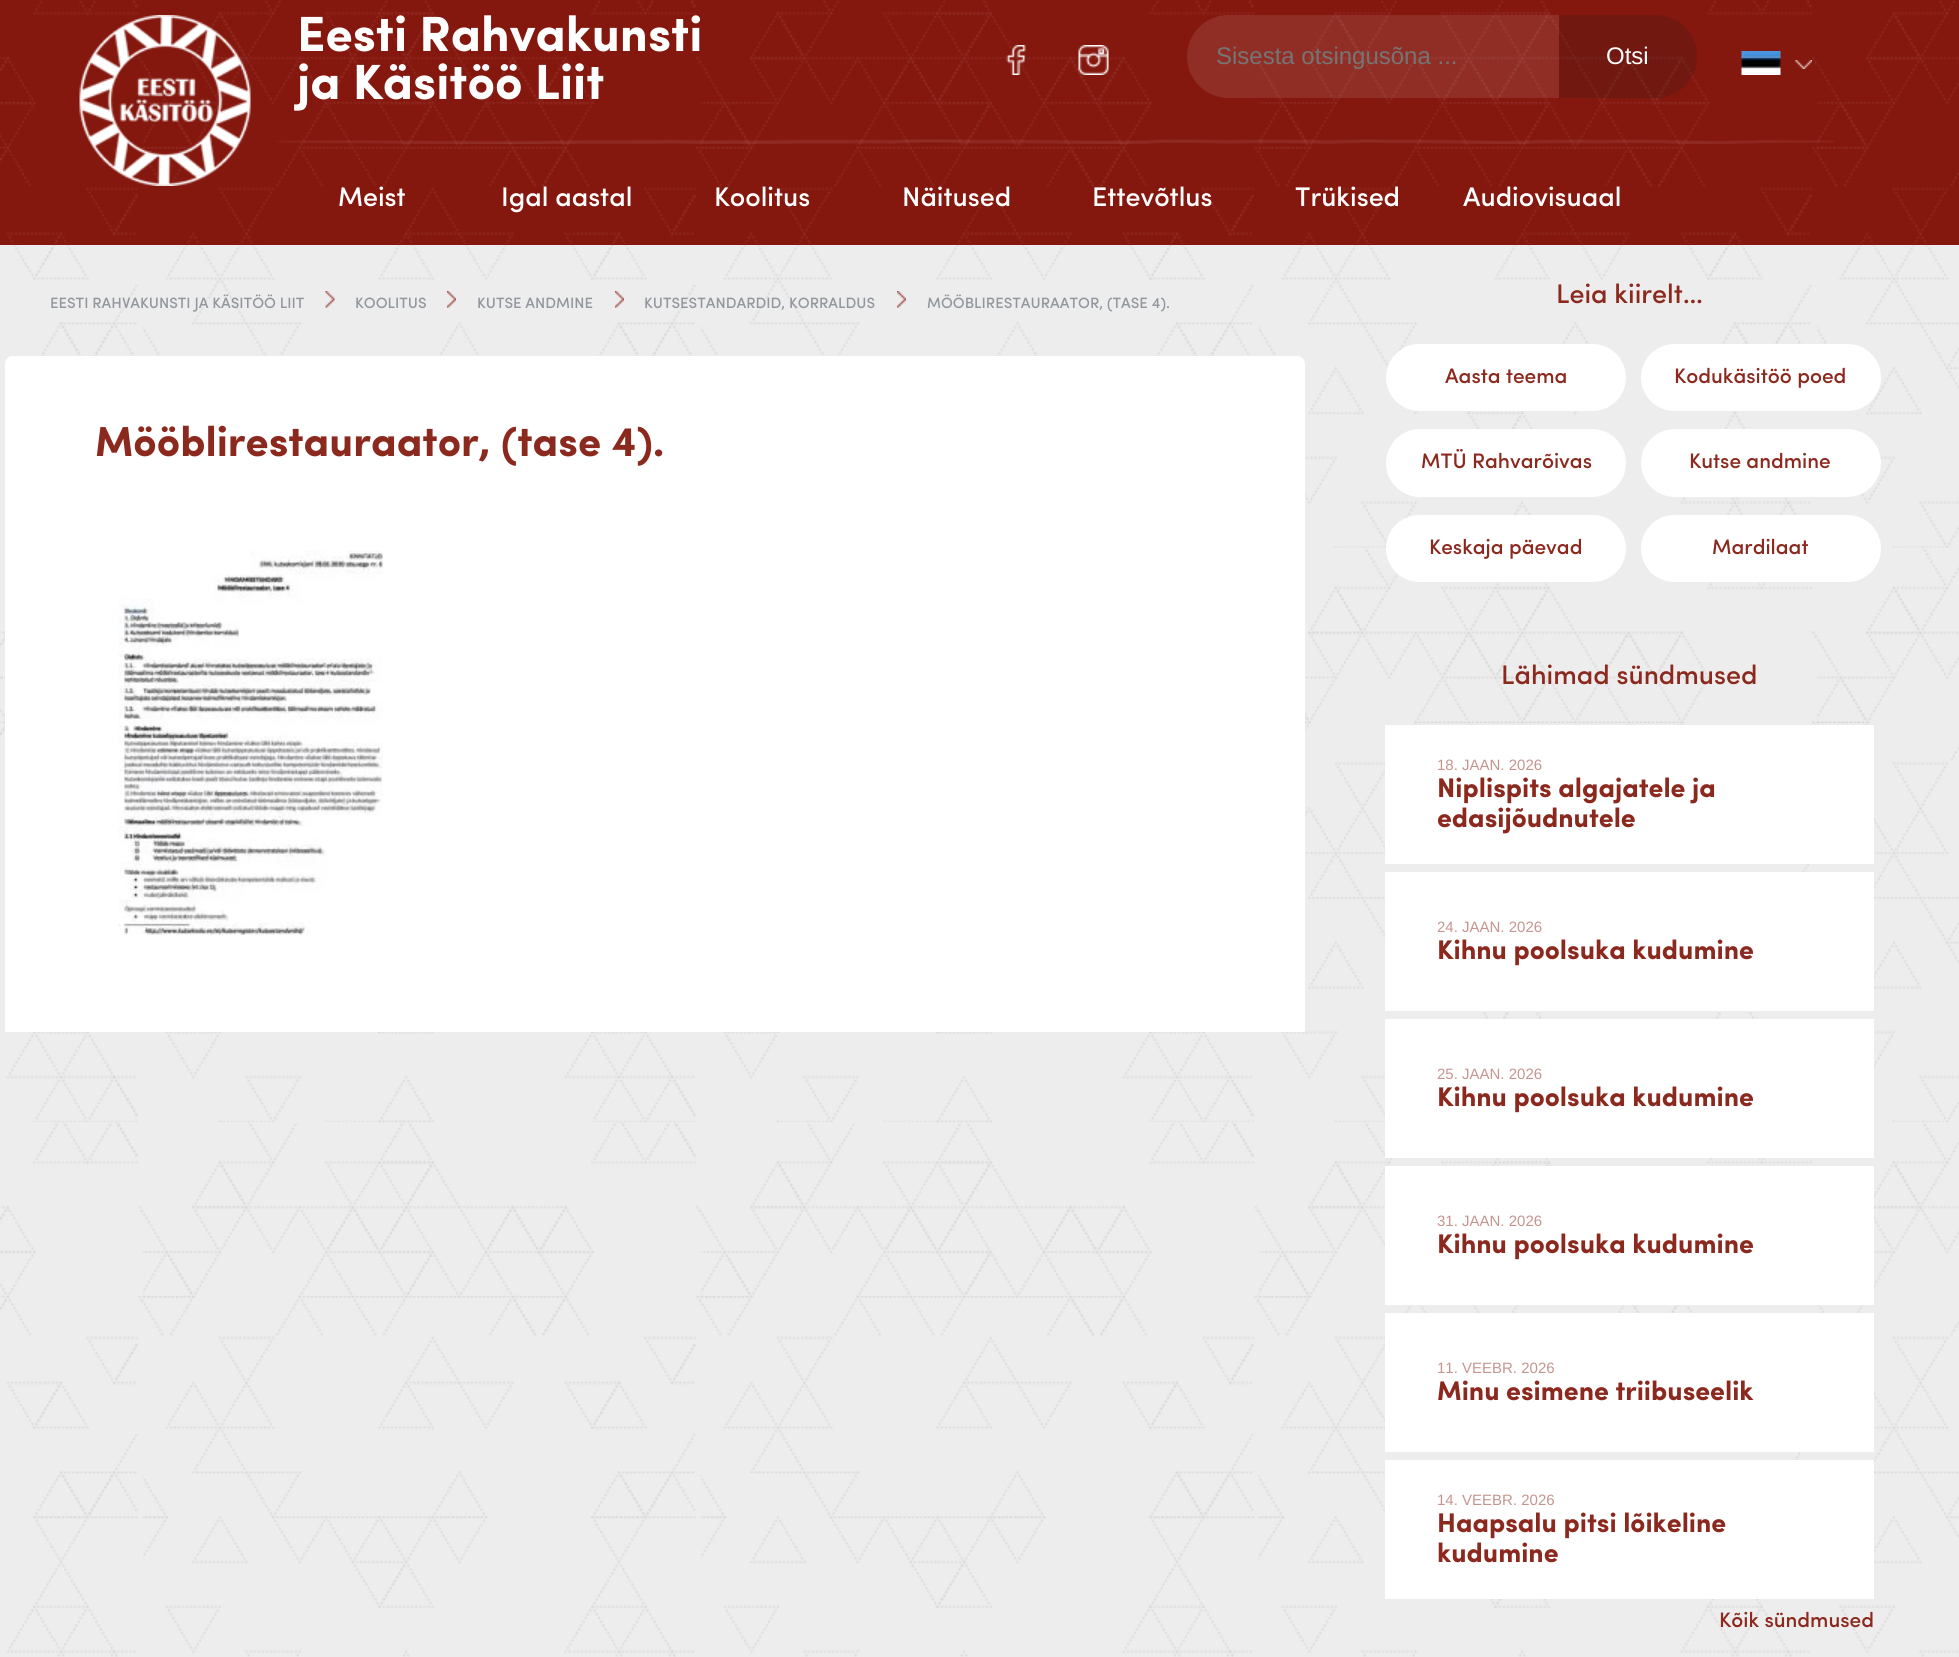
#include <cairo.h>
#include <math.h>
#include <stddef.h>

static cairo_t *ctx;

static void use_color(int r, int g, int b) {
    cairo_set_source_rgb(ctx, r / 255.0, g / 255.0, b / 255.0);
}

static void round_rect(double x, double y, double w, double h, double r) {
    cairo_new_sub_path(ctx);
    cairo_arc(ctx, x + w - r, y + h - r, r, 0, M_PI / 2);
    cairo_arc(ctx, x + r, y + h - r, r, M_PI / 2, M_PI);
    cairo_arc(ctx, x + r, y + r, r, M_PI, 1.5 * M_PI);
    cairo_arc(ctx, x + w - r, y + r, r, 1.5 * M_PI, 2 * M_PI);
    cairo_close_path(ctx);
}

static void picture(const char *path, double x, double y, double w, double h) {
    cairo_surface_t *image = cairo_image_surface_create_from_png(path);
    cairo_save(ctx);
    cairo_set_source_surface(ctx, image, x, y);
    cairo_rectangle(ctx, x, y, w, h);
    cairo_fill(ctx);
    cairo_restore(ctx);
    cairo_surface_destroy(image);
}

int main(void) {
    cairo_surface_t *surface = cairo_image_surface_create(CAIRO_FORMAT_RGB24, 1959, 1657);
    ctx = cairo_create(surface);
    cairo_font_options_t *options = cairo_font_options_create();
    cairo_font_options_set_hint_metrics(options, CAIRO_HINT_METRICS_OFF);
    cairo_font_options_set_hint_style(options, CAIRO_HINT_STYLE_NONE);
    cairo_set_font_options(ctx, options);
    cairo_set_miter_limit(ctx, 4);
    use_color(237, 237, 237);
    cairo_paint(ctx);
    picture("img1.png", 0, 245, 1959, 1412);
    use_color(132, 23, 14);
    cairo_rectangle(ctx, 0, 0, 1959, 245);
    cairo_fill(ctx);
    picture("img2.png", 0, 0, 1959, 245);
    picture("img3.png", 79, 15, 172, 171);
    cairo_select_font_face(ctx, "Sofia", CAIRO_FONT_SLANT_NORMAL, CAIRO_FONT_WEIGHT_BOLD);
    cairo_set_font_size(ctx, 49.5);
    use_color(255, 255, 255);
    cairo_move_to(ctx, 297, 51);
    cairo_show_text(ctx, "Eesti Rahvakunsti");
    cairo_move_to(ctx, 297, 99);
    cairo_show_text(ctx, "ja Käsitöö Liit");
    picture("img4.png", 1006, 45, 20, 30);
    picture("img5.png", 1078, 45, 31, 30);
    cairo_set_source_rgba(ctx, 1, 1, 1, 0.1);
    cairo_new_path(ctx);
    cairo_move_to(ctx, 1228.5, 15);
    cairo_line_to(ctx, 1559, 15);
    cairo_line_to(ctx, 1559, 98);
    cairo_line_to(ctx, 1228.5, 98);
    cairo_curve_to(ctx, 1205.5, 98, 1187, 79.5, 1187, 56.5);
    cairo_curve_to(ctx, 1187, 33.5, 1205.5, 15, 1228.5, 15);
    cairo_close_path(ctx);
    cairo_fill(ctx);
    cairo_select_font_face(ctx, "Liberation Sans", CAIRO_FONT_SLANT_NORMAL, CAIRO_FONT_WEIGHT_NORMAL);
    cairo_set_font_size(ctx, 24);
    use_color(117, 117, 117);
    cairo_move_to(ctx, 1216, 64);
    cairo_show_text(ctx, "Sisesta otsingusõna ...");
    cairo_set_source_rgba(ctx, 0.137, 0.122, 0.125, 0.2);
    cairo_new_path(ctx);
    cairo_move_to(ctx, 1559, 15);
    cairo_line_to(ctx, 1655.5, 15);
    cairo_curve_to(ctx, 1678.5, 15, 1697, 33.5, 1697, 56.5);
    cairo_curve_to(ctx, 1697, 79.5, 1678.5, 98, 1655.5, 98);
    cairo_line_to(ctx, 1559, 98);
    cairo_close_path(ctx);
    cairo_fill(ctx);
    use_color(255, 255, 255);
    cairo_move_to(ctx, 1606, 64);
    cairo_show_text(ctx, "Otsi");
    picture("img6.png", 1741, 51, 40, 24);
    picture("img7.png", 1795, 60, 17, 9);
    picture("img8.png", 277, 139, 1557, 5);
    cairo_select_font_face(ctx, "Sofia Medium", CAIRO_FONT_SLANT_NORMAL, CAIRO_FONT_WEIGHT_NORMAL);
    cairo_set_font_size(ctx, 27);
    cairo_move_to(ctx, 338, 206);
    cairo_show_text(ctx, "Meist");
    cairo_move_to(ctx, 501, 206);
    cairo_show_text(ctx, "Igal aastal");
    cairo_move_to(ctx, 714, 206);
    cairo_show_text(ctx, "Koolitus");
    cairo_move_to(ctx, 902, 206);
    cairo_show_text(ctx, "Näitused");
    cairo_move_to(ctx, 1092, 206);
    cairo_show_text(ctx, "Ettevõtlus");
    cairo_move_to(ctx, 1295, 206);
    cairo_show_text(ctx, "Trükised");
    cairo_move_to(ctx, 1463, 206);
    cairo_show_text(ctx, "Audiovisuaal");
    cairo_set_font_size(ctx, 15);
    use_color(146, 151, 158);
    cairo_move_to(ctx, 50, 308);
    cairo_show_text(ctx, "EESTI RAHVAKUNSTI JA KÄSITÖÖ LIIT");
    picture("img9.png", 325, 291, 10, 17);
    cairo_move_to(ctx, 355, 308);
    cairo_show_text(ctx, "KOOLITUS");
    picture("img10.png", 447, 291, 9, 17);
    cairo_move_to(ctx, 477, 308);
    cairo_show_text(ctx, "KUTSE ANDMINE");
    picture("img11.png", 615, 291, 9, 17);
    cairo_move_to(ctx, 644, 308);
    cairo_show_text(ctx, "KUTSESTANDARDID, KORRALDUS");
    picture("img11.png", 897, 291, 9, 17);
    cairo_move_to(ctx, 927, 308);
    cairo_show_text(ctx, "MÖÖBLIRESTAURAATOR, (TASE 4).");
    use_color(255, 255, 255);
    cairo_new_path(ctx);
    cairo_move_to(ctx, 13, 356);
    cairo_line_to(ctx, 1297, 356);
    cairo_curve_to(ctx, 1301.5, 356, 1305, 359.5, 1305, 364);
    cairo_line_to(ctx, 1305, 1032);
    cairo_line_to(ctx, 5, 1032);
    cairo_line_to(ctx, 5, 364);
    cairo_curve_to(ctx, 5, 359.5, 8.5, 356, 13, 356);
    cairo_close_path(ctx);
    cairo_fill(ctx);
    cairo_select_font_face(ctx, "Sofia", CAIRO_FONT_SLANT_NORMAL, CAIRO_FONT_WEIGHT_BOLD);
    cairo_set_font_size(ctx, 42);
    use_color(140, 41, 31);
    cairo_move_to(ctx, 95, 456);
    cairo_show_text(ctx, "Mööblirestauraator, (tase 4).");
    picture("img12.png", 118, 550, 265, 385);
    cairo_select_font_face(ctx, "Sofia Medium", CAIRO_FONT_SLANT_NORMAL, CAIRO_FONT_WEIGHT_NORMAL);
    cairo_set_font_size(ctx, 27);
    cairo_move_to(ctx, 1556, 303);
    cairo_show_text(ctx, "Leia kiirelt…");
    use_color(255, 255, 255);
    round_rect(1386, 344, 240, 67, 33.5);
    cairo_fill(ctx);
    cairo_set_font_size(ctx, 21);
    use_color(140, 41, 31);
    cairo_move_to(ctx, 1445, 383);
    cairo_show_text(ctx, "Aasta teema");
    use_color(255, 255, 255);
    round_rect(1641, 344, 240, 67, 33.5);
    cairo_fill(ctx);
    use_color(140, 41, 31);
    cairo_move_to(ctx, 1674, 383);
    cairo_show_text(ctx, "Kodukäsitöö poed");
    use_color(255, 255, 255);
    round_rect(1386, 429, 240, 68, 34);
    cairo_fill(ctx);
    use_color(140, 41, 31);
    cairo_move_to(ctx, 1421, 468);
    cairo_show_text(ctx, "MTÜ Rahvarõivas");
    use_color(255, 255, 255);
    round_rect(1641, 429, 240, 68, 34);
    cairo_fill(ctx);
    use_color(140, 41, 31);
    cairo_move_to(ctx, 1689, 468);
    cairo_show_text(ctx, "Kutse andmine");
    use_color(255, 255, 255);
    round_rect(1386, 515, 240, 67, 33.5);
    cairo_fill(ctx);
    use_color(140, 41, 31);
    cairo_move_to(ctx, 1429, 554);
    cairo_show_text(ctx, "Keskaja päevad");
    use_color(255, 255, 255);
    round_rect(1641, 515, 240, 67, 33.5);
    cairo_fill(ctx);
    use_color(140, 41, 31);
    cairo_move_to(ctx, 1712, 554);
    cairo_show_text(ctx, "Mardilaat");
    cairo_set_font_size(ctx, 27);
    cairo_move_to(ctx, 1501, 684);
    cairo_show_text(ctx, "Lähimad sündmused");
    use_color(255, 255, 255);
    cairo_rectangle(ctx, 1385, 725, 489, 139);
    cairo_fill(ctx);
    cairo_select_font_face(ctx, "Liberation Sans", CAIRO_FONT_SLANT_NORMAL, CAIRO_FONT_WEIGHT_NORMAL);
    cairo_set_font_size(ctx, 15);
    use_color(198, 148, 143);
    cairo_move_to(ctx, 1437, 770);
    cairo_show_text(ctx, "18. JAAN. 2026");
    cairo_select_font_face(ctx, "Sofia", CAIRO_FONT_SLANT_NORMAL, CAIRO_FONT_WEIGHT_BOLD);
    cairo_set_font_size(ctx, 27);
    use_color(140, 41, 31);
    cairo_move_to(ctx, 1437, 797);
    cairo_show_text(ctx, "Niplispits algajatele ja");
    cairo_move_to(ctx, 1437, 827);
    cairo_show_text(ctx, "edasijõudnutele");
    use_color(255, 255, 255);
    cairo_rectangle(ctx, 1385, 872, 489, 139);
    cairo_fill(ctx);
    cairo_select_font_face(ctx, "Liberation Sans", CAIRO_FONT_SLANT_NORMAL, CAIRO_FONT_WEIGHT_NORMAL);
    cairo_set_font_size(ctx, 15);
    use_color(198, 148, 143);
    cairo_move_to(ctx, 1437, 932);
    cairo_show_text(ctx, "24. JAAN. 2026");
    cairo_select_font_face(ctx, "Sofia", CAIRO_FONT_SLANT_NORMAL, CAIRO_FONT_WEIGHT_BOLD);
    cairo_set_font_size(ctx, 27);
    use_color(140, 41, 31);
    cairo_move_to(ctx, 1437, 959);
    cairo_show_text(ctx, "Kihnu poolsuka kudumine");
    use_color(255, 255, 255);
    cairo_rectangle(ctx, 1385, 1019, 489, 139);
    cairo_fill(ctx);
    cairo_select_font_face(ctx, "Liberation Sans", CAIRO_FONT_SLANT_NORMAL, CAIRO_FONT_WEIGHT_NORMAL);
    cairo_set_font_size(ctx, 15);
    use_color(198, 148, 143);
    cairo_move_to(ctx, 1437, 1079);
    cairo_show_text(ctx, "25. JAAN. 2026");
    cairo_select_font_face(ctx, "Sofia", CAIRO_FONT_SLANT_NORMAL, CAIRO_FONT_WEIGHT_BOLD);
    cairo_set_font_size(ctx, 27);
    use_color(140, 41, 31);
    cairo_move_to(ctx, 1437, 1106);
    cairo_show_text(ctx, "Kihnu poolsuka kudumine");
    use_color(255, 255, 255);
    cairo_rectangle(ctx, 1385, 1166, 489, 139);
    cairo_fill(ctx);
    cairo_select_font_face(ctx, "Liberation Sans", CAIRO_FONT_SLANT_NORMAL, CAIRO_FONT_WEIGHT_NORMAL);
    cairo_set_font_size(ctx, 15);
    use_color(198, 148, 143);
    cairo_move_to(ctx, 1437, 1226);
    cairo_show_text(ctx, "31. JAAN. 2026");
    cairo_select_font_face(ctx, "Sofia", CAIRO_FONT_SLANT_NORMAL, CAIRO_FONT_WEIGHT_BOLD);
    cairo_set_font_size(ctx, 27);
    use_color(140, 41, 31);
    cairo_move_to(ctx, 1437, 1253);
    cairo_show_text(ctx, "Kihnu poolsuka kudumine");
    use_color(255, 255, 255);
    cairo_rectangle(ctx, 1385, 1313, 489, 139);
    cairo_fill(ctx);
    cairo_select_font_face(ctx, "Liberation Sans", CAIRO_FONT_SLANT_NORMAL, CAIRO_FONT_WEIGHT_NORMAL);
    cairo_set_font_size(ctx, 15);
    use_color(198, 148, 143);
    cairo_move_to(ctx, 1437, 1373);
    cairo_show_text(ctx, "11. VEEBR. 2026");
    cairo_select_font_face(ctx, "Sofia", CAIRO_FONT_SLANT_NORMAL, CAIRO_FONT_WEIGHT_BOLD);
    cairo_set_font_size(ctx, 27);
    use_color(140, 41, 31);
    cairo_move_to(ctx, 1437, 1400);
    cairo_show_text(ctx, "Minu esimene triibuseelik");
    use_color(255, 255, 255);
    cairo_rectangle(ctx, 1385, 1460, 489, 139);
    cairo_fill(ctx);
    cairo_select_font_face(ctx, "Liberation Sans", CAIRO_FONT_SLANT_NORMAL, CAIRO_FONT_WEIGHT_NORMAL);
    cairo_set_font_size(ctx, 15);
    use_color(198, 148, 143);
    cairo_move_to(ctx, 1437, 1505);
    cairo_show_text(ctx, "14. VEEBR. 2026");
    cairo_select_font_face(ctx, "Sofia", CAIRO_FONT_SLANT_NORMAL, CAIRO_FONT_WEIGHT_BOLD);
    cairo_set_font_size(ctx, 27);
    use_color(140, 41, 31);
    cairo_move_to(ctx, 1437, 1532);
    cairo_show_text(ctx, "Haapsalu pitsi lõikeline");
    cairo_move_to(ctx, 1437, 1562);
    cairo_show_text(ctx, "kudumine");
    cairo_select_font_face(ctx, "Sofia Medium", CAIRO_FONT_SLANT_NORMAL, CAIRO_FONT_WEIGHT_NORMAL);
    cairo_set_font_size(ctx, 21);
    cairo_move_to(ctx, 1719, 1627);
    cairo_show_text(ctx, "Kõik sündmused");
    cairo_surface_write_to_png(surface, "result.png");
    cairo_font_options_destroy(options);
    cairo_destroy(ctx);
    cairo_surface_destroy(surface);
    return 0;
}
